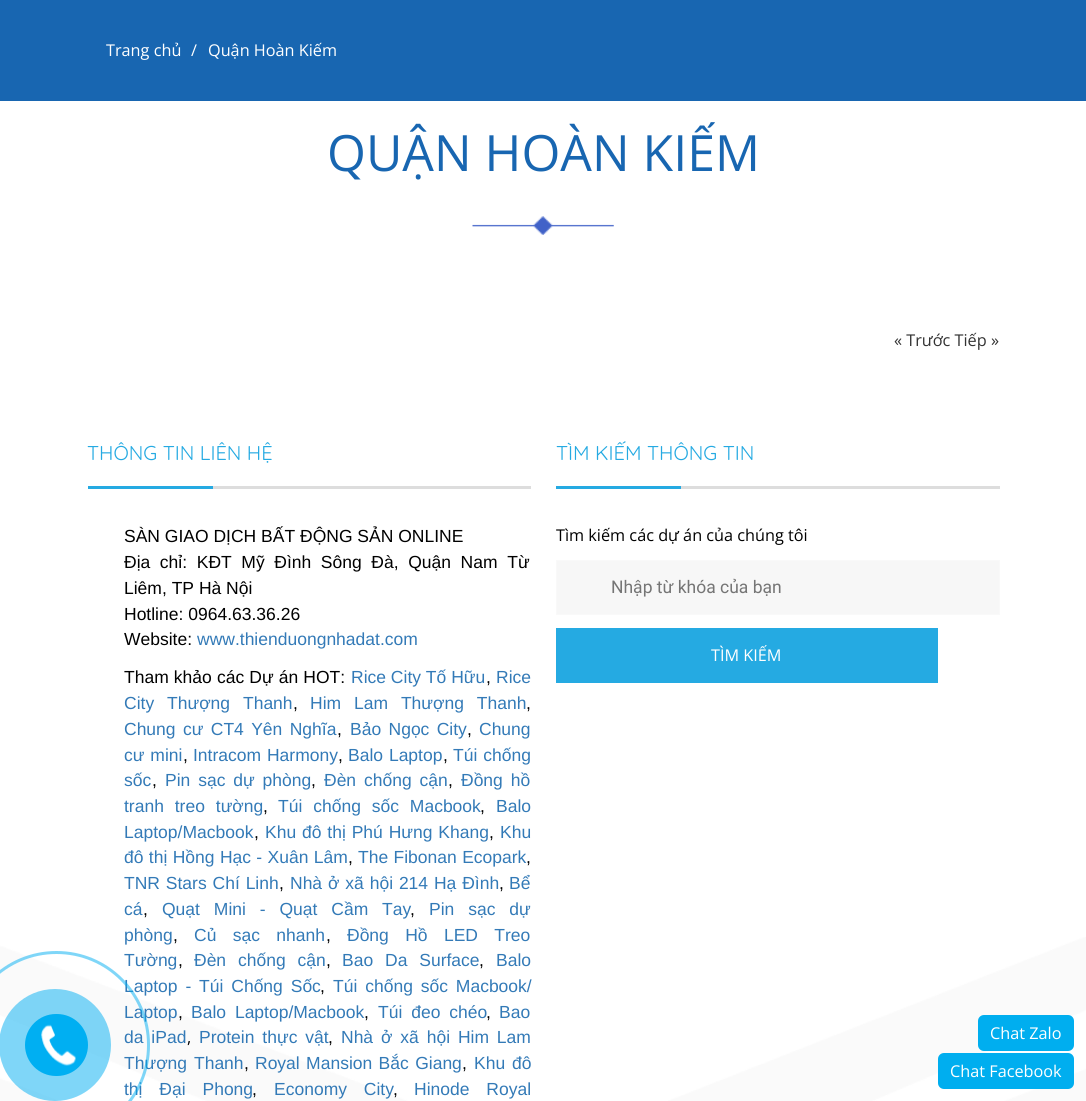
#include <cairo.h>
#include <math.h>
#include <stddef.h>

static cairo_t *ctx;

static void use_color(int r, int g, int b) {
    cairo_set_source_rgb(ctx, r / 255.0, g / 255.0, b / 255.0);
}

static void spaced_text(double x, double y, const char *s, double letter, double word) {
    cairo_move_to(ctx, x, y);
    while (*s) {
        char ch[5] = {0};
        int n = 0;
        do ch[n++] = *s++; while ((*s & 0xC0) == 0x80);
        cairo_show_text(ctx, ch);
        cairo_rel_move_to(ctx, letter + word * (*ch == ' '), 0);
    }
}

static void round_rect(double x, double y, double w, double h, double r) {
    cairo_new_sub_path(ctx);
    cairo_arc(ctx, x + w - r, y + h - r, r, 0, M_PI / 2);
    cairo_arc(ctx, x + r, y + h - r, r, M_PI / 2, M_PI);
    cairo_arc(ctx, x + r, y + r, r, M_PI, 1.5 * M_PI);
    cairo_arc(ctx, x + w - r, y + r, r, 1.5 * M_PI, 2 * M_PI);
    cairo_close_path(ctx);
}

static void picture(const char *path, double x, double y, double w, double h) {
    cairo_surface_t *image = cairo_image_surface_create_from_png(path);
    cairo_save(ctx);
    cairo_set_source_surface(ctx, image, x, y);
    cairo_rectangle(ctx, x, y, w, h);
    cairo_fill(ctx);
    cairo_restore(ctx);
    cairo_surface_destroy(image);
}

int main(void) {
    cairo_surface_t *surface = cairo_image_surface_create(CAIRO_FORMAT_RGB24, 1086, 1101);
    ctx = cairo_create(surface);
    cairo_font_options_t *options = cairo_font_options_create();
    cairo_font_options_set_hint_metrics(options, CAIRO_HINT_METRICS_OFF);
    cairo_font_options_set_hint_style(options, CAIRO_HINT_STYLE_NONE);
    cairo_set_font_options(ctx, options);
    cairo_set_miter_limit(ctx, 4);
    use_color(255, 255, 255);
    cairo_paint(ctx);
    use_color(24, 102, 177);
    cairo_rectangle(ctx, 0, 0, 1086, 101);
    cairo_fill(ctx);
    cairo_select_font_face(ctx, "Open Sans", CAIRO_FONT_SLANT_NORMAL, CAIRO_FONT_WEIGHT_NORMAL);
    cairo_set_font_size(ctx, 16.25);
    use_color(255, 255, 255);
    cairo_move_to(ctx, 106, 56);
    cairo_show_text(ctx, "Trang chủ");
    cairo_move_to(ctx, 191, 56);
    cairo_show_text(ctx, "/");
    cairo_move_to(ctx, 208, 56);
    cairo_show_text(ctx, "Quận Hoàn Kiếm");
    cairo_set_font_size(ctx, 50);
    use_color(24, 102, 177);
    cairo_move_to(ctx, 327, 171);
    cairo_show_text(ctx, "QUẬN HOÀN KIẾM");
    picture("img1.png", 472, 216, 142, 19);
    cairo_set_font_size(ctx, 16.25);
    use_color(51, 51, 51);
    cairo_move_to(ctx, 894, 346);
    cairo_show_text(ctx, "« Trước Tiếp »");
    picture("img3.png", 0, 937, 1086, 164);
    cairo_select_font_face(ctx, "Liberation Sans", CAIRO_FONT_SLANT_NORMAL, CAIRO_FONT_WEIGHT_NORMAL);
    cairo_set_font_size(ctx, 17.5);
    use_color(51, 122, 183);
    cairo_move_to(ctx, 124, 966);
    cairo_show_text(ctx, "Tường");
    spaced_text(124, 992, "Laptop - Túi Chống Sốc", 0, 3);
    cairo_move_to(ctx, 124, 1018);
    cairo_show_text(ctx, "Laptop");
    spaced_text(124, 1043, "da iPad", 0, 3);
    spaced_text(124, 1069, "Thượng Thanh", 0, 2);
    spaced_text(124, 1095, "thị Đại Phong", 0, 12);
    round_rect(-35.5, 952.5, 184, 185, 92);
    cairo_set_source_rgba(ctx, 0, 0.686, 0.949, 0.5);
    cairo_set_line_width(ctx, 3);
    cairo_stroke(ctx);
    cairo_arc(ctx, 55, 1045, 56, 0, 2 * M_PI);
    cairo_fill(ctx);
    use_color(0, 175, 242);
    round_rect(25, 1014, 63, 62, 31);
    cairo_fill(ctx);
    picture("img2.png", 41, 1024, 35, 42);
    use_color(221, 221, 221);
    cairo_rectangle(ctx, 213, 486, 318, 3);
    cairo_fill(ctx);
    cairo_select_font_face(ctx, "Quicksand", CAIRO_FONT_SLANT_NORMAL, CAIRO_FONT_WEIGHT_NORMAL);
    cairo_set_font_size(ctx, 20);
    use_color(37, 170, 226);
    cairo_move_to(ctx, 87, 460);
    cairo_show_text(ctx, "THÔNG TIN LIÊN HỆ");
    cairo_rectangle(ctx, 88, 486, 125, 3);
    cairo_fill(ctx);
    cairo_select_font_face(ctx, "Liberation Sans", CAIRO_FONT_SLANT_NORMAL, CAIRO_FONT_WEIGHT_NORMAL);
    cairo_set_font_size(ctx, 17.5);
    use_color(0, 0, 0);
    cairo_move_to(ctx, 124, 542);
    cairo_show_text(ctx, "SÀN GIAO DỊCH BẤT ĐỘNG SẢN ONLINE");
    spaced_text(124, 568, "Địa chỉ: KĐT Mỹ Đình Sông Đà, Quận Nam Từ", 0, 4.75);
    cairo_move_to(ctx, 124, 594);
    cairo_show_text(ctx, "Liêm, TP Hà Nội");
    cairo_move_to(ctx, 124, 620);
    cairo_show_text(ctx, "Hotline: 0964.63.36.26");
    cairo_move_to(ctx, 124, 645);
    cairo_show_text(ctx, "Website:");
    use_color(51, 122, 183);
    cairo_move_to(ctx, 197, 645);
    cairo_show_text(ctx, "www.thienduongnhadat.com");
    use_color(0, 0, 0);
    spaced_text(124, 683, "Tham khảo các Dự án HOT:", 0, 0.25);
    use_color(51, 122, 183);
    cairo_move_to(ctx, 351, 683);
    cairo_show_text(ctx, "Rice City Tố Hữu");
    use_color(0, 0, 0);
    cairo_move_to(ctx, 486, 683);
    cairo_show_text(ctx, ",");
    use_color(51, 122, 183);
    cairo_move_to(ctx, 496, 683);
    cairo_show_text(ctx, "Rice");
    spaced_text(124, 709, "City Thượng Thanh", 0, 8);
    use_color(0, 0, 0);
    cairo_move_to(ctx, 293, 709);
    cairo_show_text(ctx, ",");
    use_color(51, 122, 183);
    spaced_text(310, 709, "Him Lam Thượng Thanh", 0, 8);
    use_color(0, 0, 0);
    cairo_move_to(ctx, 526, 709);
    cairo_show_text(ctx, ",");
    use_color(51, 122, 183);
    spaced_text(124, 735, "Chung cư CT4 Yên Nghĩa", 0, 2.5);
    use_color(0, 0, 0);
    cairo_move_to(ctx, 337, 735);
    cairo_show_text(ctx, ",");
    use_color(51, 122, 183);
    spaced_text(350, 735, "Bảo Ngọc City", 0, 2.5);
    use_color(0, 0, 0);
    cairo_move_to(ctx, 467, 735);
    cairo_show_text(ctx, ",");
    use_color(51, 122, 183);
    cairo_move_to(ctx, 479, 735);
    cairo_show_text(ctx, "Chung");
    spaced_text(124, 761, "cư mini", 0, 1);
    use_color(0, 0, 0);
    cairo_move_to(ctx, 183, 761);
    cairo_show_text(ctx, ",");
    use_color(51, 122, 183);
    spaced_text(193, 761, "Intracom Harmony", 0, 1);
    use_color(0, 0, 0);
    cairo_move_to(ctx, 338, 761);
    cairo_show_text(ctx, ",");
    use_color(51, 122, 183);
    spaced_text(348, 761, "Balo Laptop", 0, 1);
    use_color(0, 0, 0);
    cairo_move_to(ctx, 443, 761);
    cairo_show_text(ctx, ",");
    use_color(51, 122, 183);
    spaced_text(453, 761, "Túi chống", 0, 1);
    cairo_move_to(ctx, 124, 786);
    cairo_show_text(ctx, "sốc");
    use_color(0, 0, 0);
    cairo_move_to(ctx, 152, 786);
    cairo_show_text(ctx, ",");
    use_color(51, 122, 183);
    spaced_text(165, 786, "Pin sạc dự phòng", 0, 3);
    use_color(0, 0, 0);
    cairo_move_to(ctx, 311, 786);
    cairo_show_text(ctx, ",");
    use_color(51, 122, 183);
    spaced_text(324, 786, "Đèn chống cận", 0, 3);
    use_color(0, 0, 0);
    cairo_move_to(ctx, 448, 786);
    cairo_show_text(ctx, ",");
    use_color(51, 122, 183);
    spaced_text(461, 786, "Đồng hồ", 0, 3);
    spaced_text(124, 812, "tranh treo tường", 0, 6);
    use_color(0, 0, 0);
    cairo_move_to(ctx, 263, 812);
    cairo_show_text(ctx, ",");
    use_color(51, 122, 183);
    spaced_text(278, 812, "Túi chống sốc Macbook", 0, 6);
    use_color(0, 0, 0);
    cairo_move_to(ctx, 480, 812);
    cairo_show_text(ctx, ",");
    use_color(51, 122, 183);
    cairo_move_to(ctx, 496, 812);
    cairo_show_text(ctx, "Balo");
    cairo_move_to(ctx, 124, 838);
    cairo_show_text(ctx, "Laptop/Macbook");
    use_color(0, 0, 0);
    cairo_move_to(ctx, 254, 838);
    cairo_show_text(ctx, ",");
    use_color(51, 122, 183);
    spaced_text(265, 838, "Khu đô thị Phú Hưng Khang", 0, 1);
    use_color(0, 0, 0);
    cairo_move_to(ctx, 489, 838);
    cairo_show_text(ctx, ",");
    use_color(51, 122, 183);
    cairo_move_to(ctx, 500, 838);
    cairo_show_text(ctx, "Khu");
    spaced_text(124, 863, "đô thị Hồng Hạc - Xuân Lâm", 0, 0.5);
    use_color(0, 0, 0);
    cairo_move_to(ctx, 348, 863);
    cairo_show_text(ctx, ",");
    use_color(51, 122, 183);
    spaced_text(358, 863, "The Fibonan Ecopark", 0, 0.5);
    use_color(0, 0, 0);
    cairo_move_to(ctx, 526, 863);
    cairo_show_text(ctx, ",");
    use_color(51, 122, 183);
    spaced_text(124, 889, "TNR Stars Chí Linh", 0, 1);
    use_color(0, 0, 0);
    cairo_move_to(ctx, 279, 889);
    cairo_show_text(ctx, ",");
    use_color(51, 122, 183);
    spaced_text(290, 889, "Nhà ở xã hội 214 Hạ Đình", 0, 1);
    use_color(0, 0, 0);
    cairo_move_to(ctx, 499, 889);
    cairo_show_text(ctx, ",");
    use_color(51, 122, 183);
    cairo_move_to(ctx, 509, 889);
    cairo_show_text(ctx, "Bể");
    cairo_move_to(ctx, 124, 915);
    cairo_show_text(ctx, "cá");
    use_color(0, 0, 0);
    cairo_move_to(ctx, 143, 915);
    cairo_show_text(ctx, ",");
    use_color(51, 122, 183);
    spaced_text(162, 915, "Quạt Mini - Quạt Cầm Tay", 0, 9);
    use_color(0, 0, 0);
    cairo_move_to(ctx, 410, 915);
    cairo_show_text(ctx, ",");
    use_color(51, 122, 183);
    spaced_text(429, 915, "Pin sạc dự", 0, 9);
    cairo_move_to(ctx, 124, 941);
    cairo_show_text(ctx, "phòng");
    use_color(0, 0, 0);
    cairo_move_to(ctx, 173, 941);
    cairo_show_text(ctx, ",");
    use_color(51, 122, 183);
    spaced_text(194, 941, "Củ sạc nhanh", 0, 11.5);
    use_color(0, 0, 0);
    cairo_move_to(ctx, 326, 941);
    cairo_show_text(ctx, ",");
    use_color(51, 122, 183);
    spaced_text(347, 941, "Đồng Hồ LED Treo", 0, 11.5);
    use_color(0, 0, 0);
    cairo_move_to(ctx, 178, 966);
    cairo_show_text(ctx, ",");
    use_color(51, 122, 183);
    spaced_text(194, 966, "Đèn chống cận", 0, 7);
    use_color(0, 0, 0);
    cairo_move_to(ctx, 326, 966);
    cairo_show_text(ctx, ",");
    use_color(51, 122, 183);
    spaced_text(342, 966, "Bao Da Surface", 0, 7);
    use_color(0, 0, 0);
    cairo_move_to(ctx, 479, 966);
    cairo_show_text(ctx, ",");
    use_color(51, 122, 183);
    cairo_move_to(ctx, 496, 966);
    cairo_show_text(ctx, "Balo");
    use_color(0, 0, 0);
    cairo_move_to(ctx, 320, 992);
    cairo_show_text(ctx, ",");
    use_color(51, 122, 183);
    spaced_text(333, 992, "Túi chống sốc Macbook/", 0, 3);
    use_color(0, 0, 0);
    cairo_move_to(ctx, 178, 1018);
    cairo_show_text(ctx, ",");
    use_color(51, 122, 183);
    spaced_text(191, 1018, "Balo Laptop/Macbook", 0, 4);
    use_color(0, 0, 0);
    cairo_move_to(ctx, 364, 1018);
    cairo_show_text(ctx, ",");
    use_color(51, 122, 183);
    spaced_text(378, 1018, "Túi đeo chéo", 0, 4);
    use_color(0, 0, 0);
    cairo_move_to(ctx, 486, 1018);
    cairo_show_text(ctx, ",");
    use_color(51, 122, 183);
    cairo_move_to(ctx, 499, 1018);
    cairo_show_text(ctx, "Bao");
    cairo_select_font_face(ctx, "Open Sans", CAIRO_FONT_SLANT_NORMAL, CAIRO_FONT_WEIGHT_NORMAL);
    cairo_set_font_size(ctx, 16.25);
    use_color(0, 0, 0);
    cairo_move_to(ctx, 187, 1043);
    cairo_show_text(ctx, ",");
    cairo_select_font_face(ctx, "Liberation Sans", CAIRO_FONT_SLANT_NORMAL, CAIRO_FONT_WEIGHT_NORMAL);
    cairo_set_font_size(ctx, 17.5);
    use_color(51, 122, 183);
    spaced_text(199, 1043, "Protein thực vật", 0, 3);
    use_color(0, 0, 0);
    cairo_move_to(ctx, 328, 1043);
    cairo_show_text(ctx, ",");
    use_color(51, 122, 183);
    spaced_text(341, 1043, "Nhà ở xã hội Him Lam", 0, 3);
    use_color(0, 0, 0);
    cairo_move_to(ctx, 244, 1069);
    cairo_show_text(ctx, ",");
    use_color(51, 122, 183);
    spaced_text(255, 1069, "Royal Mansion Bắc Giang", 0, 1.5);
    use_color(0, 0, 0);
    cairo_move_to(ctx, 462, 1069);
    cairo_show_text(ctx, ",");
    use_color(51, 122, 183);
    spaced_text(474, 1069, "Khu đô", 0, 2);
    use_color(0, 0, 0);
    cairo_move_to(ctx, 252, 1095);
    cairo_show_text(ctx, ",");
    use_color(51, 122, 183);
    spaced_text(274, 1095, "Economy City", 0, 12);
    use_color(0, 0, 0);
    cairo_move_to(ctx, 393, 1095);
    cairo_show_text(ctx, ",");
    use_color(51, 122, 183);
    spaced_text(414, 1095, "Hinode Royal", 0, 12);
    use_color(221, 221, 221);
    cairo_rectangle(ctx, 681, 486, 319, 3);
    cairo_fill(ctx);
    cairo_select_font_face(ctx, "Quicksand", CAIRO_FONT_SLANT_NORMAL, CAIRO_FONT_WEIGHT_NORMAL);
    cairo_set_font_size(ctx, 20);
    use_color(37, 170, 226);
    cairo_move_to(ctx, 556, 460);
    cairo_show_text(ctx, "TÌM KIẾM THÔNG TIN");
    cairo_rectangle(ctx, 556, 486, 125, 3);
    cairo_fill(ctx);
    cairo_select_font_face(ctx, "Open Sans", CAIRO_FONT_SLANT_NORMAL, CAIRO_FONT_WEIGHT_NORMAL);
    cairo_set_font_size(ctx, 16.25);
    use_color(0, 0, 0);
    cairo_move_to(ctx, 556, 541);
    cairo_show_text(ctx, "Tìm kiếm các dự án của chúng tôi");
    use_color(247, 247, 247);
    cairo_rectangle(ctx, 556.5, 560.5, 443, 54);
    cairo_fill_preserve(ctx);
    use_color(249, 249, 249);
    cairo_set_line_width(ctx, 1);
    cairo_stroke(ctx);
    cairo_select_font_face(ctx, "Roboto", CAIRO_FONT_SLANT_NORMAL, CAIRO_FONT_WEIGHT_NORMAL);
    cairo_set_font_size(ctx, 17.5);
    use_color(117, 117, 117);
    cairo_move_to(ctx, 611, 593);
    cairo_show_text(ctx, "Nhập từ khóa của bạn");
    use_color(37, 170, 226);
    cairo_rectangle(ctx, 556, 628, 382, 55);
    cairo_fill(ctx);
    cairo_select_font_face(ctx, "Open Sans", CAIRO_FONT_SLANT_NORMAL, CAIRO_FONT_WEIGHT_NORMAL);
    cairo_set_font_size(ctx, 16.25);
    use_color(255, 255, 255);
    cairo_move_to(ctx, 711, 661);
    cairo_show_text(ctx, "TÌM KIẾM");
    use_color(0, 174, 239);
    round_rect(978, 1015, 96, 36, 6);
    cairo_fill(ctx);
    use_color(255, 255, 255);
    cairo_move_to(ctx, 990, 1039);
    cairo_show_text(ctx, "Chat Zalo");
    use_color(0, 174, 239);
    round_rect(938, 1053, 136, 36, 6);
    cairo_fill(ctx);
    use_color(255, 255, 255);
    cairo_move_to(ctx, 950, 1077);
    cairo_show_text(ctx, "Chat Facebook");
    cairo_surface_write_to_png(surface, "result.png");
    cairo_font_options_destroy(options);
    cairo_destroy(ctx);
    cairo_surface_destroy(surface);
    return 0;
}
